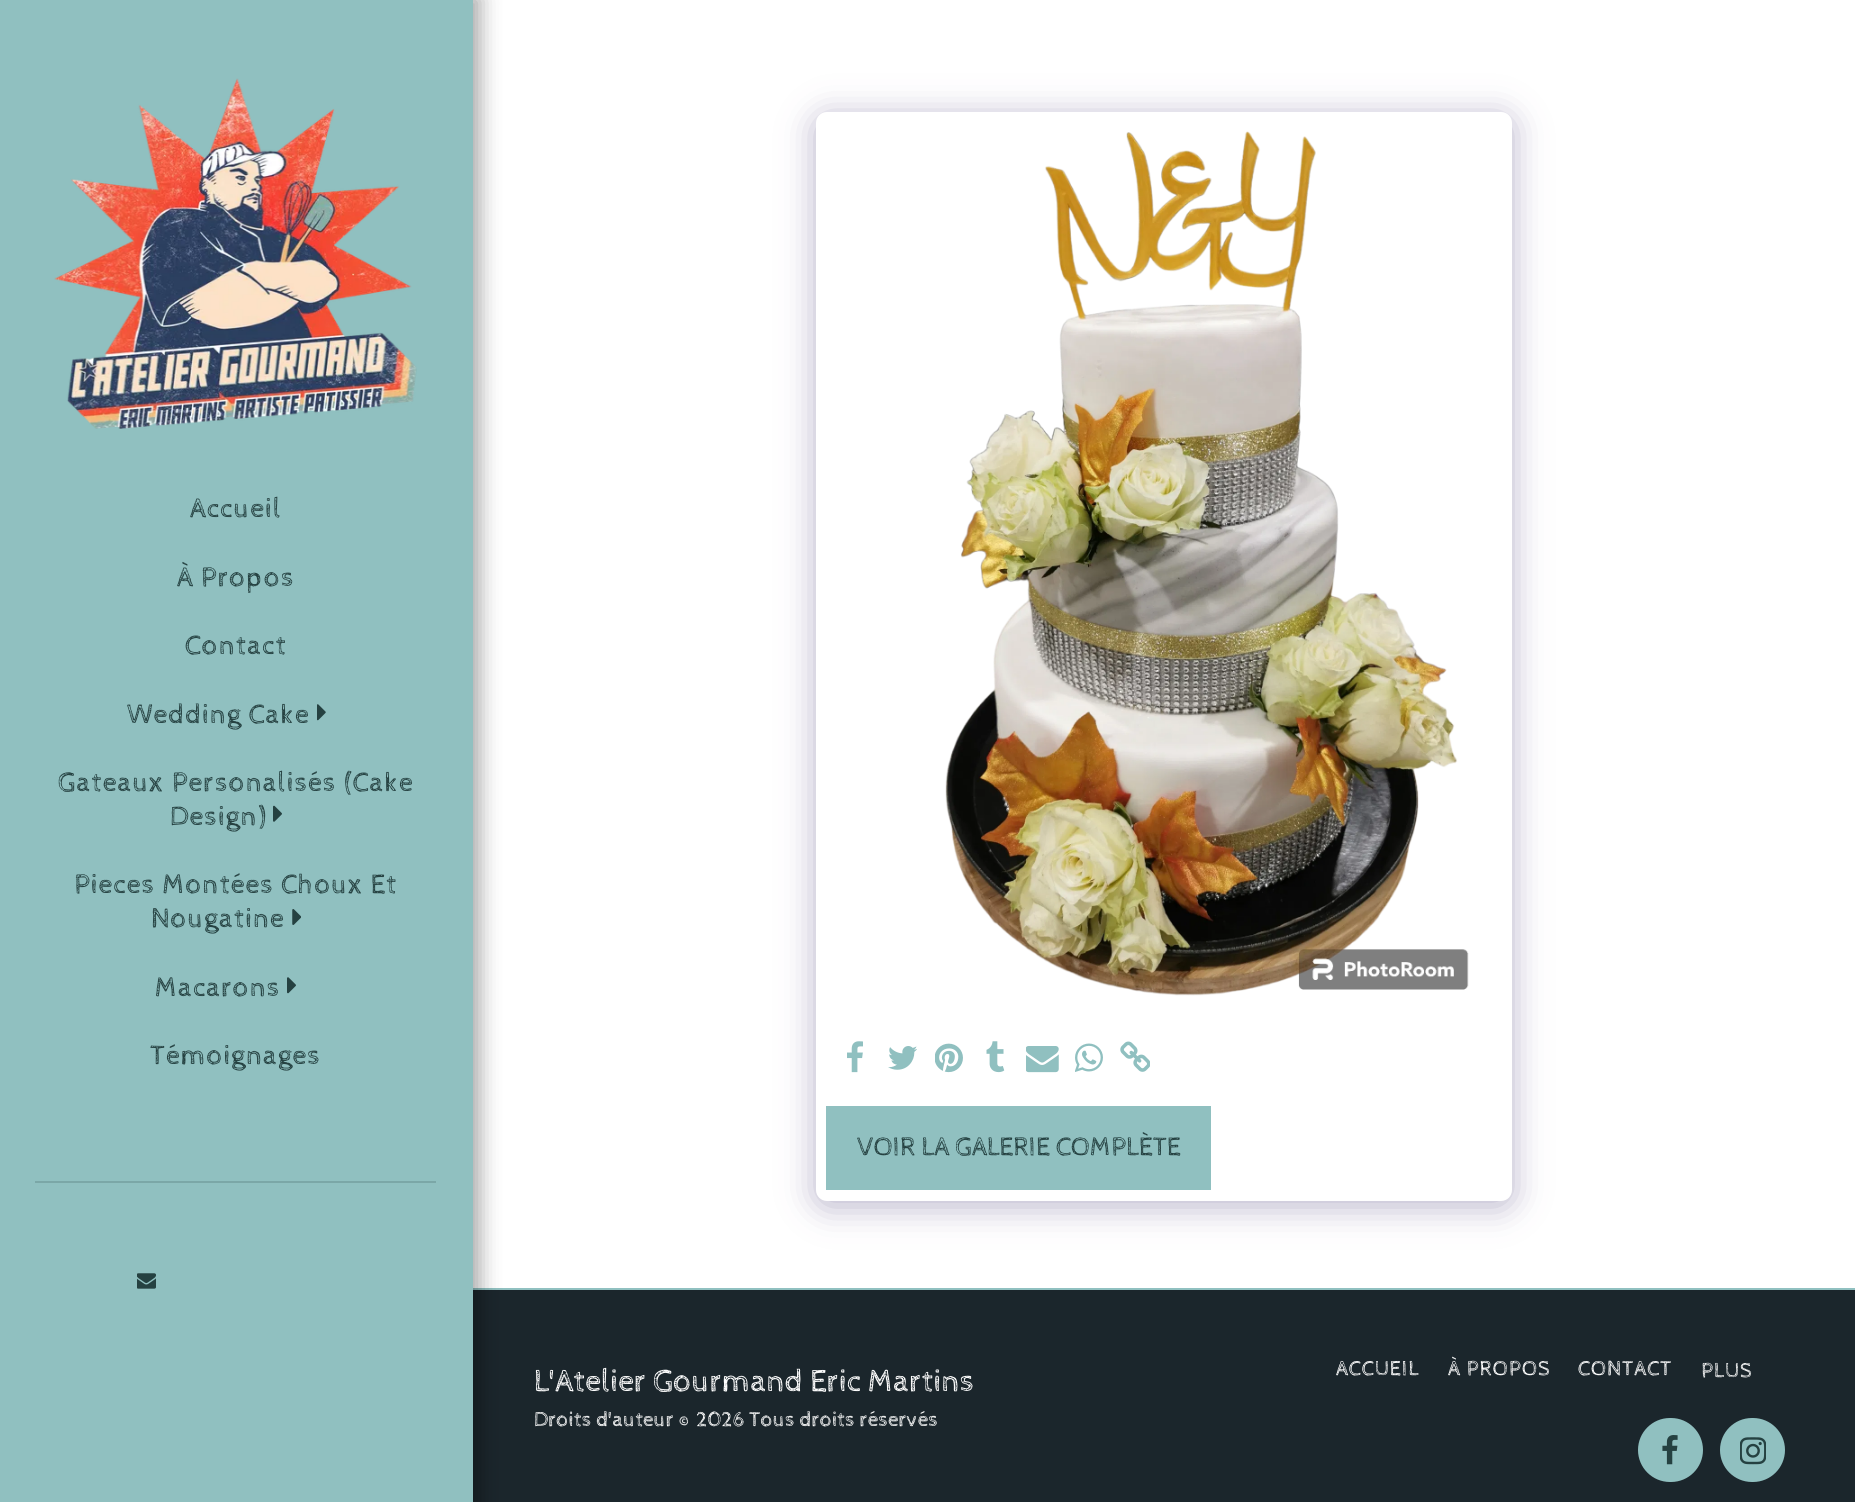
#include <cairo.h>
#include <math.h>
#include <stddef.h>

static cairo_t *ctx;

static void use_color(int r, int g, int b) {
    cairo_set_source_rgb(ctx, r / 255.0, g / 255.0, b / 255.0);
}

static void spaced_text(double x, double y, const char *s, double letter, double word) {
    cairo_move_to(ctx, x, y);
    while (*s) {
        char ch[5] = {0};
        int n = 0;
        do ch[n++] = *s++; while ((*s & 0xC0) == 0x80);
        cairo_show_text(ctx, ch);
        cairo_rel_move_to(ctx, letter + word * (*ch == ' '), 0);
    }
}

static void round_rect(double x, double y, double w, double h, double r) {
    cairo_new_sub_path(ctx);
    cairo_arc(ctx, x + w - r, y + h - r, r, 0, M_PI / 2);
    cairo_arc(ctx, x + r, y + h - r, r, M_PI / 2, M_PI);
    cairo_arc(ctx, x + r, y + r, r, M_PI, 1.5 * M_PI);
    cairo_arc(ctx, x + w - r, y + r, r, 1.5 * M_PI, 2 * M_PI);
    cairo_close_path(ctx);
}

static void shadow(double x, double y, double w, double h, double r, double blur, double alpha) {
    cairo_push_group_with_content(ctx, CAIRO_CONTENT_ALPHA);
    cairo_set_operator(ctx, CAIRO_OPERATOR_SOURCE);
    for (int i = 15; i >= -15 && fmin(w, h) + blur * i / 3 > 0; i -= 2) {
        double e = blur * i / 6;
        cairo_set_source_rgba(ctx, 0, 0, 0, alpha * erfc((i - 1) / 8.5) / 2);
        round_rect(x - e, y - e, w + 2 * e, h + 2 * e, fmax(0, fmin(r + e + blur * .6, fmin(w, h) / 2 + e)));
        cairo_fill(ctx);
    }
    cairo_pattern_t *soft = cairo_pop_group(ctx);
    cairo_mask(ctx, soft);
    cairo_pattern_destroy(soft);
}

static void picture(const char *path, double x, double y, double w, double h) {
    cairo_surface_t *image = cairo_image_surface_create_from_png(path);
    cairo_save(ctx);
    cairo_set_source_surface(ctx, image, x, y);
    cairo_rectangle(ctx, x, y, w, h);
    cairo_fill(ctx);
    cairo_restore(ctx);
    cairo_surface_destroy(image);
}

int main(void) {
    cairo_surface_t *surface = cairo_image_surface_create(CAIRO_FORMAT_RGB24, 1855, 1502);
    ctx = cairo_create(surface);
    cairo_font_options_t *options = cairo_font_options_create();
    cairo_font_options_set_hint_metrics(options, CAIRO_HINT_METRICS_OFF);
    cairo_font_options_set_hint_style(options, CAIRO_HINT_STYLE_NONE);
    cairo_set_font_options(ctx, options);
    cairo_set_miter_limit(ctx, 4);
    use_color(27, 38, 44);
    cairo_paint(ctx);
    use_color(255, 255, 255);
    cairo_rectangle(ctx, 473, 0, 1382, 1288);
    cairo_fill(ctx);
    use_color(144, 192, 192);
    cairo_rectangle(ctx, 473, 1288, 1382, 2);
    cairo_fill(ctx);
    use_color(0, 0, 0);
    shadow(0, -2, 480, 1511, 0, 10.5, 0.35);
    use_color(144, 192, 192);
    cairo_rectangle(ctx, 0, 0, 473, 1502);
    cairo_fill(ctx);
    picture("img1.png", 54, 78, 363, 351);
    cairo_select_font_face(ctx, "Cabin Sketch", CAIRO_FONT_SLANT_NORMAL, CAIRO_FONT_WEIGHT_NORMAL);
    cairo_set_font_size(ctx, 28);
    use_color(37, 65, 65);
    spaced_text(190, 517, "Accueil", 0.9, 0);
    spaced_text(177, 586, "À Propos", 0.9, 0);
    spaced_text(185, 654, "Contact", 0.9, 0);
    spaced_text(127, 723, "Wedding Cake", 0.9, 0);
    picture("img2.png", 317, 704, 9, 17);
    spaced_text(58, 791, "Gateaux Personalisés (Cake", 0.9, 0);
    spaced_text(170, 825, "Design)", 0.9, 0);
    picture("img3.png", 273, 805, 9, 17);
    spaced_text(74, 893, "Pieces Montées Choux Et", 0.9, 0);
    spaced_text(151, 927, "Nougatine", 0.9, 0);
    picture("img4.png", 292, 909, 9, 16);
    spaced_text(155, 996, "Macarons", 0.9, 0);
    picture("img5.png", 287, 977, 9, 17);
    spaced_text(150, 1064, "Témoignages", 0.9, 0);
    use_color(123, 167, 167);
    cairo_rectangle(ctx, 35, 1181, 401, 2);
    cairo_fill(ctx);
    picture("img6.png", 137, 1273, 19, 16);
    use_color(77, 63, 122);
    shadow(816, 117, 696, 1089, 11, 17.5, 0.4);
    use_color(255, 255, 255);
    round_rect(816, 112, 696, 1089, 11);
    cairo_fill(ctx);
    picture("img7.png", 945, 131, 524, 865);
    picture("img8.png", 847, 1041, 16, 32);
    picture("img9.png", 888, 1046, 29, 24);
    picture("img10.png", 935, 1043, 28, 30);
    picture("img11.png", 986, 1041, 19, 32);
    picture("img12.png", 1026, 1046, 33, 27);
    picture("img13.png", 1075, 1043, 28, 29);
    picture("img14.png", 1120, 1041, 30, 31);
    use_color(144, 192, 192);
    cairo_rectangle(ctx, 826, 1106, 385, 84);
    cairo_fill(ctx);
    cairo_set_font_size(ctx, 26.6);
    use_color(37, 65, 65);
    cairo_move_to(ctx, 857, 1155);
    cairo_show_text(ctx, "VOIR LA GALERIE COMPLÈTE");
    cairo_set_font_size(ctx, 31.9);
    use_color(255, 255, 255);
    cairo_move_to(ctx, 534, 1391);
    cairo_show_text(ctx, "L'Atelier Gourmand Eric Martins");
    cairo_set_font_size(ctx, 21.25);
    cairo_move_to(ctx, 534, 1426);
    cairo_show_text(ctx, "Droits d'auteur © 2026 Tous droits réservés");
    spaced_text(1336, 1375, "ACCUEIL", 0.9, 0);
    spaced_text(1448, 1375, "À PROPOS", 0.9, 0);
    spaced_text(1578, 1375, "CONTACT", 0.9, 0);
    spaced_text(1701, 1377, "PLUS", 0.9, 0);
    use_color(144, 192, 192);
    round_rect(1639, 1419, 63, 62, 31);
    cairo_fill_preserve(ctx);
    cairo_stroke(ctx);
    picture("img15.png", 1662, 1435, 16, 30);
    round_rect(1721, 1419, 63, 62, 31);
    cairo_fill_preserve(ctx);
    cairo_stroke(ctx);
    picture("img16.png", 1740, 1437, 26, 28);
    cairo_surface_write_to_png(surface, "result.png");
    cairo_font_options_destroy(options);
    cairo_destroy(ctx);
    cairo_surface_destroy(surface);
    return 0;
}
